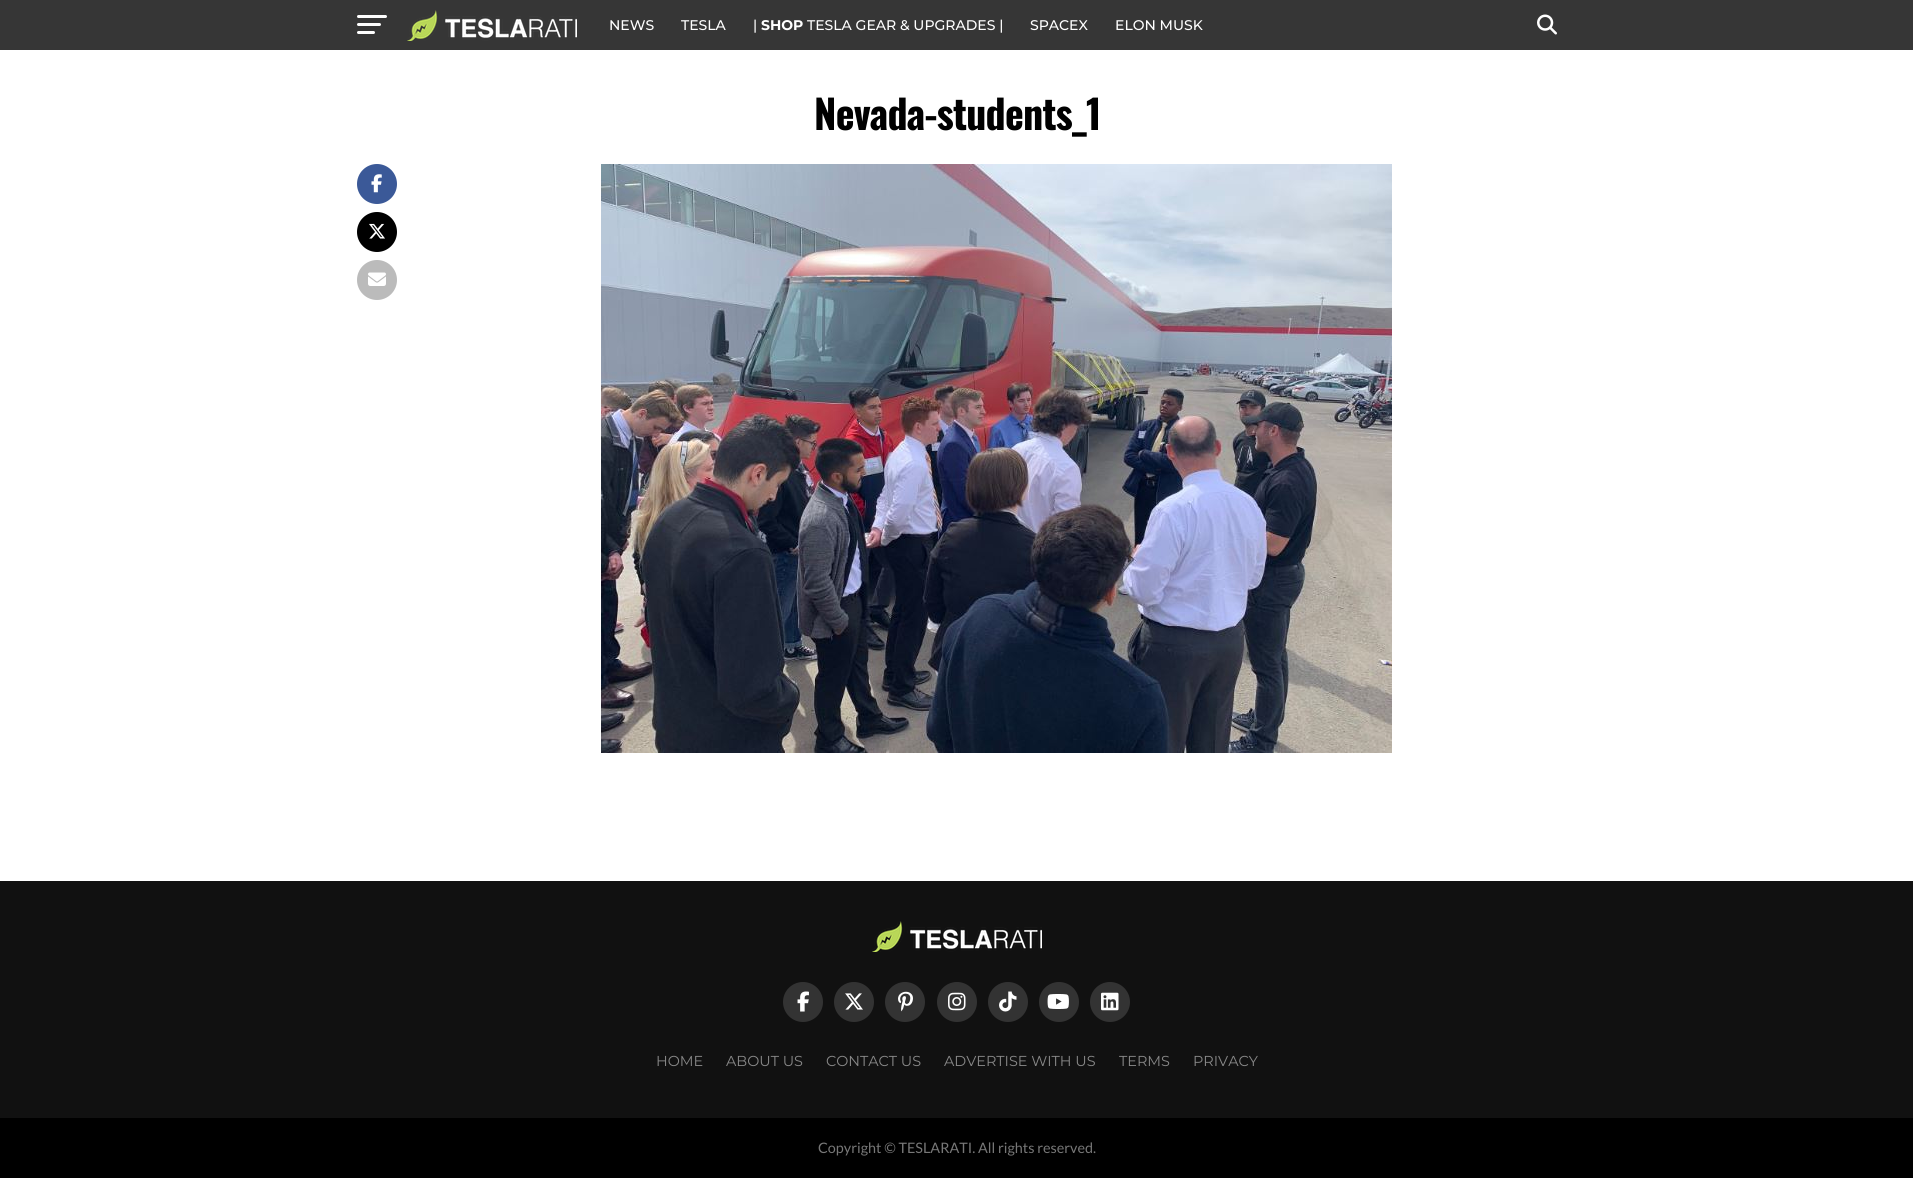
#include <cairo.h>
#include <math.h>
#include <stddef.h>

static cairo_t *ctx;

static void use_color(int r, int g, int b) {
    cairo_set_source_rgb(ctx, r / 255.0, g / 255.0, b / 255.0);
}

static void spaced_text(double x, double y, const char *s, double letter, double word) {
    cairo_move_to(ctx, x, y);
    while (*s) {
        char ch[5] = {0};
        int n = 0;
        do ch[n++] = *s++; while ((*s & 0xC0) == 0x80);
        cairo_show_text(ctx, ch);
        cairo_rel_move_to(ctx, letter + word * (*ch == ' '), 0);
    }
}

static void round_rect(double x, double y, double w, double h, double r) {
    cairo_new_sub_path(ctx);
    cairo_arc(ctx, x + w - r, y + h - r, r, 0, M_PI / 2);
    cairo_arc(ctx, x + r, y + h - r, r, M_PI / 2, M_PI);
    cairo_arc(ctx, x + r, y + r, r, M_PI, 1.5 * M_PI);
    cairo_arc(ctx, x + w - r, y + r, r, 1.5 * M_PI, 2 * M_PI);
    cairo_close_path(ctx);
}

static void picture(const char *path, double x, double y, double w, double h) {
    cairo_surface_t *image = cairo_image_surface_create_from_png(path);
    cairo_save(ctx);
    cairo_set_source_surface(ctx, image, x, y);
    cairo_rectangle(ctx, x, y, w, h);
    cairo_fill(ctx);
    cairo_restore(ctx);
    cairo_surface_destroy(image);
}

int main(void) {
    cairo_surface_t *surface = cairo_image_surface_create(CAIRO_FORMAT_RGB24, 1913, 1178);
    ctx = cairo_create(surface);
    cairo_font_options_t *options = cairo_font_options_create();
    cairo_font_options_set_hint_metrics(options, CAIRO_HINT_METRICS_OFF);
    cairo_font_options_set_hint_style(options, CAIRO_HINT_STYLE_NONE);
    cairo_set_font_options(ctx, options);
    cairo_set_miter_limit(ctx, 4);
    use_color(255, 255, 255);
    cairo_paint(ctx);
    use_color(54, 54, 54);
    cairo_rectangle(ctx, 0, 0, 1913, 50);
    cairo_fill(ctx);
    use_color(255, 255, 255);
    round_rect(357, 15, 30, 3, 1.5);
    cairo_fill(ctx);
    round_rect(357, 23, 24, 3, 1.5);
    cairo_fill(ctx);
    round_rect(357, 31, 18, 3, 1.5);
    cairo_fill(ctx);
    picture("img1.png", 407, 10, 170, 31);
    cairo_select_font_face(ctx, "Montserrat Medium", CAIRO_FONT_SLANT_NORMAL, CAIRO_FONT_WEIGHT_NORMAL);
    cairo_set_font_size(ctx, 14);
    cairo_move_to(ctx, 609, 30);
    cairo_show_text(ctx, "NEWS");
    cairo_move_to(ctx, 681, 30);
    cairo_show_text(ctx, "TESLA");
    cairo_move_to(ctx, 753, 30);
    cairo_show_text(ctx, "|");
    cairo_select_font_face(ctx, "Montserrat", CAIRO_FONT_SLANT_NORMAL, CAIRO_FONT_WEIGHT_BOLD);
    cairo_move_to(ctx, 761, 30);
    cairo_show_text(ctx, "SHOP");
    cairo_select_font_face(ctx, "Montserrat Medium", CAIRO_FONT_SLANT_NORMAL, CAIRO_FONT_WEIGHT_NORMAL);
    cairo_move_to(ctx, 807, 30);
    cairo_show_text(ctx, "TESLA GEAR & UPGRADES |");
    cairo_move_to(ctx, 1030, 30);
    cairo_show_text(ctx, "SPACEX");
    cairo_move_to(ctx, 1115, 30);
    cairo_show_text(ctx, "ELON MUSK");
    picture("img2.png", 1537, 14, 20, 21);
    cairo_select_font_face(ctx, "Oswald", CAIRO_FONT_SLANT_NORMAL, CAIRO_FONT_WEIGHT_BOLD);
    cairo_set_font_size(ctx, 40);
    use_color(0, 0, 0);
    spaced_text(814, 130, "Nevada-students_1", -0.75, 0);
    use_color(59, 89, 152);
    cairo_new_path(ctx);
    cairo_arc(ctx, 377, 184, 20, 0, 2 * M_PI);
    cairo_fill(ctx);
    picture("img3.png", 371, 174, 11, 19);
    use_color(0, 0, 0);
    cairo_arc(ctx, 377, 232, 20, 0, 2 * M_PI);
    cairo_fill(ctx);
    picture("img4.png", 369, 223, 16, 16);
    use_color(187, 187, 187);
    cairo_arc(ctx, 377, 280, 20, 0, 2 * M_PI);
    cairo_fill(ctx);
    picture("img5.png", 368, 272, 18, 14);
    picture("img6.png", 601, 164, 791, 589);
    use_color(17, 17, 17);
    cairo_rectangle(ctx, 0, 881, 1913, 237);
    cairo_fill(ctx);
    picture("img7.png", 872, 921, 170, 31);
    use_color(51, 51, 51);
    cairo_arc(ctx, 803, 1002, 20, 0, 2 * M_PI);
    cairo_fill(ctx);
    picture("img8.png", 797, 991, 12, 21);
    cairo_arc(ctx, 854, 1002, 20, 0, 2 * M_PI);
    cairo_fill(ctx);
    picture("img9.png", 845, 993, 18, 17);
    cairo_arc(ctx, 905, 1002, 20, 0, 2 * M_PI);
    cairo_fill(ctx);
    picture("img10.png", 898, 991, 15, 21);
    cairo_arc(ctx, 957, 1002, 20, 0, 2 * M_PI);
    cairo_fill(ctx);
    picture("img11.png", 948, 992, 18, 19);
    cairo_arc(ctx, 1008, 1002, 20, 0, 2 * M_PI);
    cairo_fill(ctx);
    picture("img12.png", 999, 991, 18, 21);
    cairo_arc(ctx, 1059, 1002, 20, 0, 2 * M_PI);
    cairo_fill(ctx);
    picture("img13.png", 1047, 994, 22, 15);
    cairo_arc(ctx, 1110, 1002, 20, 0, 2 * M_PI);
    cairo_fill(ctx);
    picture("img14.png", 1101, 992, 18, 19);
    cairo_select_font_face(ctx, "Montserrat", CAIRO_FONT_SLANT_NORMAL, CAIRO_FONT_WEIGHT_NORMAL);
    cairo_set_font_size(ctx, 14.4);
    use_color(136, 136, 136);
    cairo_move_to(ctx, 656, 1066);
    cairo_show_text(ctx, "HOME");
    cairo_move_to(ctx, 726, 1066);
    cairo_show_text(ctx, "ABOUT US");
    cairo_move_to(ctx, 826, 1066);
    cairo_show_text(ctx, "CONTACT US");
    cairo_move_to(ctx, 944, 1066);
    cairo_show_text(ctx, "ADVERTISE WITH US");
    cairo_move_to(ctx, 1119, 1066);
    cairo_show_text(ctx, "TERMS");
    cairo_move_to(ctx, 1193, 1066);
    cairo_show_text(ctx, "PRIVACY");
    use_color(0, 0, 0);
    cairo_rectangle(ctx, 0, 1118, 1913, 60);
    cairo_fill(ctx);
    cairo_select_font_face(ctx, "Lato", CAIRO_FONT_SLANT_NORMAL, CAIRO_FONT_WEIGHT_NORMAL);
    use_color(119, 119, 119);
    cairo_move_to(ctx, 818, 1153);
    cairo_show_text(ctx, "Copyright © TESLARATI. All rights reserved.");
    cairo_surface_write_to_png(surface, "result.png");
    cairo_font_options_destroy(options);
    cairo_destroy(ctx);
    cairo_surface_destroy(surface);
    return 0;
}
